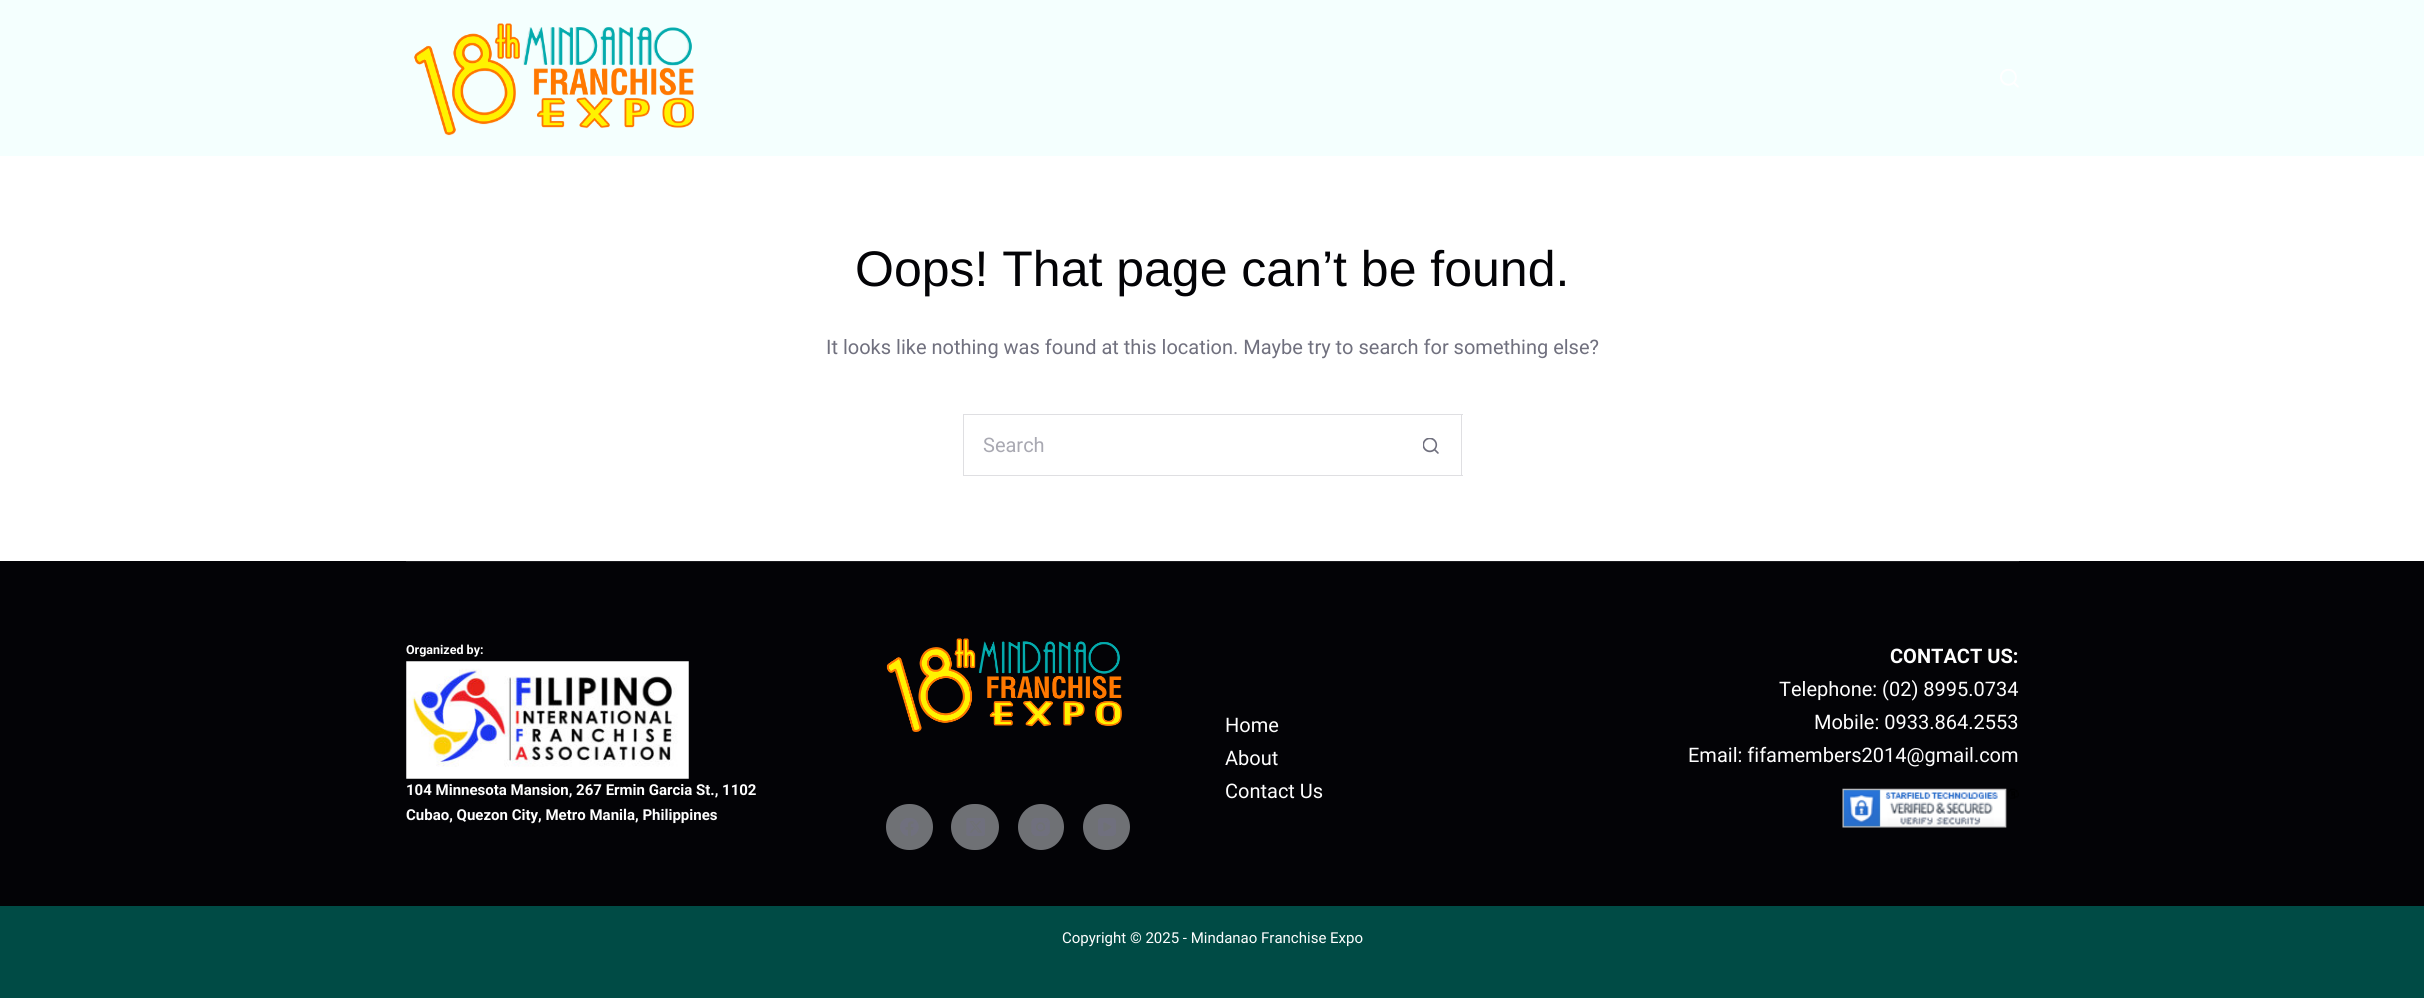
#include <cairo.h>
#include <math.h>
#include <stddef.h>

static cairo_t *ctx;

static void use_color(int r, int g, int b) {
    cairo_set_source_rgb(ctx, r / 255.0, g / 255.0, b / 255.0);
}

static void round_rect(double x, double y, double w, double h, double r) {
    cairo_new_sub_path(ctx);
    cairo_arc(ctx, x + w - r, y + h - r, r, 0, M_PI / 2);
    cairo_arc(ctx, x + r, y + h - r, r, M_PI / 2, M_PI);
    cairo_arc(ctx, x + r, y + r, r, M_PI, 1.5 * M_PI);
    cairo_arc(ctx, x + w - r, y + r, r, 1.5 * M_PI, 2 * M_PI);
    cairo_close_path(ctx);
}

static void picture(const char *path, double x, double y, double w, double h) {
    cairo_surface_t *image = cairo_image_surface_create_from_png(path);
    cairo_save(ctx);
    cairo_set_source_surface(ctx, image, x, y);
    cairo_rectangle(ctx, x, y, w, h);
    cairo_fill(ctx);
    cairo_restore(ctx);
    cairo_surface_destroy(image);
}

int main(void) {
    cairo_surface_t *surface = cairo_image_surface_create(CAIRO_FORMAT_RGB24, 2424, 998);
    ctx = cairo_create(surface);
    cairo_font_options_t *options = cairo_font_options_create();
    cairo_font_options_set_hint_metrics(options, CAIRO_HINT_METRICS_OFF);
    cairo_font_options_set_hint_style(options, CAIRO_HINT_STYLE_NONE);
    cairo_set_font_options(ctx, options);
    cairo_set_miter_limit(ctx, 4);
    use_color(255, 255, 255);
    cairo_paint(ctx);
    use_color(244, 255, 254);
    cairo_rectangle(ctx, 0, 0, 2424, 156);
    cairo_fill(ctx);
    picture("img1.png", 414, 23, 280, 113);
    picture("img2.png", 2000, 69, 19, 19);
    cairo_select_font_face(ctx, "Liberation Sans", CAIRO_FONT_SLANT_NORMAL, CAIRO_FONT_WEIGHT_NORMAL);
    cairo_set_font_size(ctx, 50);
    use_color(3, 3, 6);
    cairo_move_to(ctx, 855, 286);
    cairo_show_text(ctx, "Oops! That page can’t be found.");
    cairo_select_font_face(ctx, "Roboto", CAIRO_FONT_SLANT_NORMAL, CAIRO_FONT_WEIGHT_NORMAL);
    cairo_set_font_size(ctx, 20);
    use_color(112, 112, 126);
    cairo_move_to(ctx, 826, 354);
    cairo_show_text(ctx, "It looks like nothing was found at this location. Maybe try to search for something else?");
    use_color(223, 223, 226);
    cairo_rectangle(ctx, 963, 414, 500, 1);
    cairo_fill(ctx);
    cairo_rectangle(ctx, 963, 475, 437, 1);
    cairo_fill(ctx);
    cairo_rectangle(ctx, 963, 414, 1, 62);
    cairo_fill(ctx);
    use_color(169, 169, 178);
    cairo_move_to(ctx, 983, 452);
    cairo_show_text(ctx, "Search");
    use_color(223, 223, 226);
    cairo_rectangle(ctx, 1461, 414, 1, 62);
    cairo_fill(ctx);
    cairo_rectangle(ctx, 1400, 475, 63, 1);
    cairo_fill(ctx);
    picture("img3.png", 1423, 438, 16, 16);
    use_color(3, 3, 6);
    cairo_rectangle(ctx, 0, 561, 2424, 345);
    cairo_fill(ctx);
    use_color(28, 28, 31);
    cairo_rectangle(ctx, 406, 561, 1613, 1);
    cairo_fill(ctx);
    cairo_select_font_face(ctx, "Roboto", CAIRO_FONT_SLANT_NORMAL, CAIRO_FONT_WEIGHT_BOLD);
    cairo_set_font_size(ctx, 12.5);
    use_color(254, 254, 254);
    cairo_move_to(ctx, 406, 654);
    cairo_show_text(ctx, "Organized by:");
    picture("img4.png", 406, 661, 283, 118);
    cairo_set_font_size(ctx, 15);
    cairo_move_to(ctx, 406, 795);
    cairo_show_text(ctx, "104 Minnesota Mansion, 267 Ermin Garcia St., 1102");
    cairo_move_to(ctx, 406, 820);
    cairo_show_text(ctx, "Cubao, Quezon City, Metro Manila, Philippines");
    picture("img5.png", 886, 638, 236, 94);
    use_color(111, 113, 117);
    round_rect(886, 804, 47, 46, 23);
    cairo_fill(ctx);
    picture("img6.png", 900, 818, 19, 18);
    round_rect(951, 804, 48, 46, 23);
    cairo_fill(ctx);
    picture("img7.png", 966, 818, 19, 18);
    cairo_arc(ctx, 1041, 827, 23, 0, 2 * M_PI);
    cairo_fill(ctx);
    picture("img8.png", 1031, 818, 19, 18);
    round_rect(1083, 804, 47, 46, 23);
    cairo_fill(ctx);
    picture("img9.png", 1098, 818, 18, 18);
    cairo_select_font_face(ctx, "Roboto", CAIRO_FONT_SLANT_NORMAL, CAIRO_FONT_WEIGHT_NORMAL);
    cairo_set_font_size(ctx, 20);
    use_color(254, 254, 254);
    cairo_move_to(ctx, 1225, 732);
    cairo_show_text(ctx, "Home");
    cairo_move_to(ctx, 1225, 765);
    cairo_show_text(ctx, "About");
    cairo_move_to(ctx, 1225, 798);
    cairo_show_text(ctx, "Contact Us");
    cairo_select_font_face(ctx, "Roboto", CAIRO_FONT_SLANT_NORMAL, CAIRO_FONT_WEIGHT_BOLD);
    cairo_move_to(ctx, 1890, 663);
    cairo_show_text(ctx, "CONTACT US:");
    cairo_select_font_face(ctx, "Roboto", CAIRO_FONT_SLANT_NORMAL, CAIRO_FONT_WEIGHT_NORMAL);
    cairo_move_to(ctx, 1779, 696);
    cairo_show_text(ctx, "Telephone: (02) 8995.0734");
    cairo_move_to(ctx, 1814, 729);
    cairo_show_text(ctx, "Mobile: 0933.864.2553");
    cairo_move_to(ctx, 1688, 762);
    cairo_show_text(ctx, "Email: fifamembers2014@gmail.com");
    picture("img10.png", 1842, 788, 177, 40);
    use_color(0, 75, 69);
    cairo_rectangle(ctx, 0, 906, 2424, 92);
    cairo_fill(ctx);
    cairo_set_font_size(ctx, 15);
    use_color(254, 254, 254);
    cairo_move_to(ctx, 1062, 943);
    cairo_show_text(ctx, "Copyright © 2025 - Mindanao Franchise Expo");
    cairo_surface_write_to_png(surface, "result.png");
    cairo_font_options_destroy(options);
    cairo_destroy(ctx);
    cairo_surface_destroy(surface);
    return 0;
}
